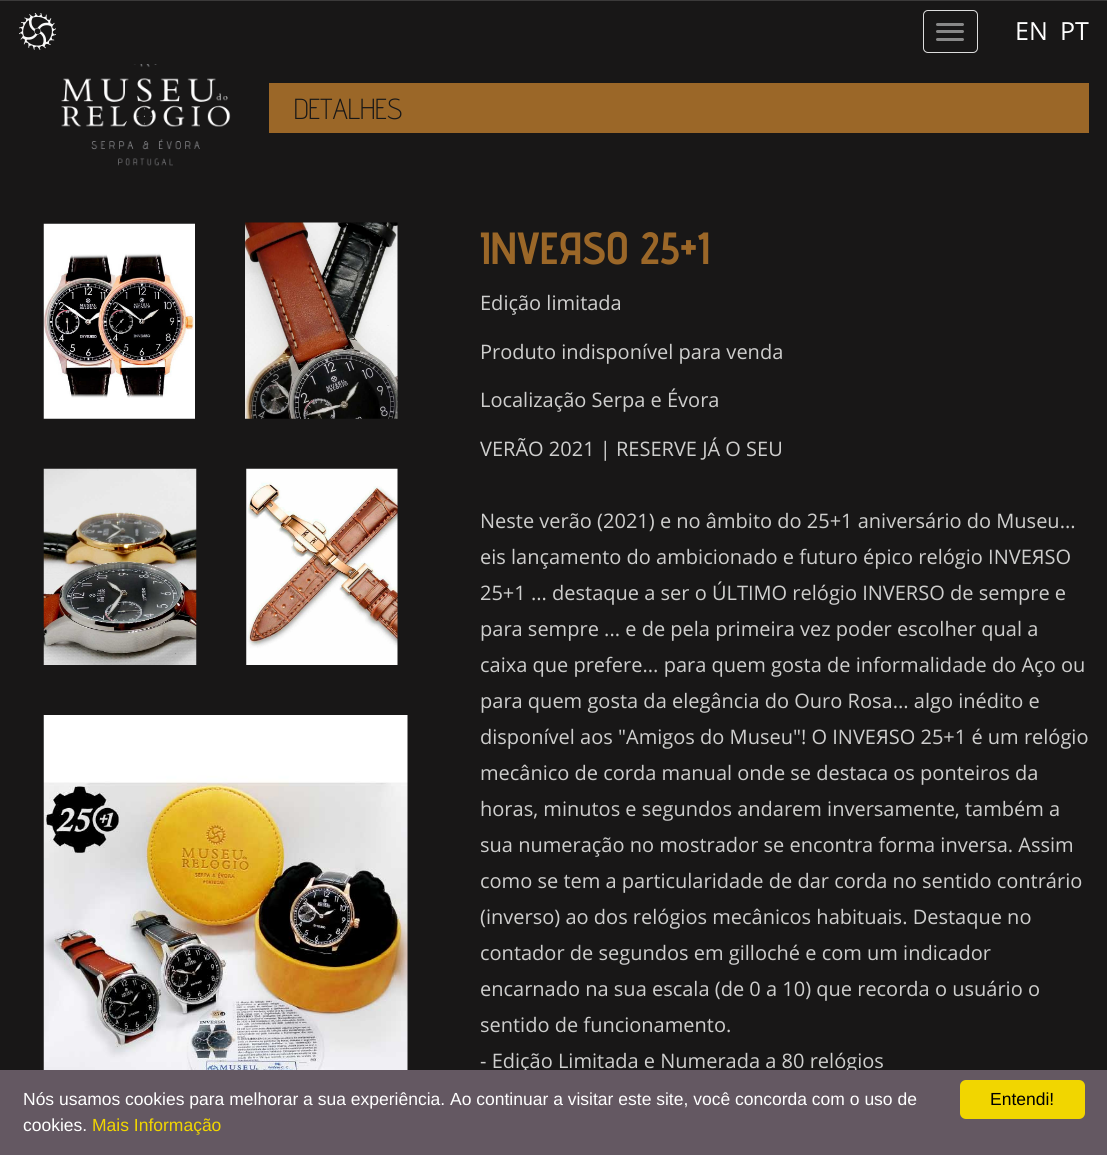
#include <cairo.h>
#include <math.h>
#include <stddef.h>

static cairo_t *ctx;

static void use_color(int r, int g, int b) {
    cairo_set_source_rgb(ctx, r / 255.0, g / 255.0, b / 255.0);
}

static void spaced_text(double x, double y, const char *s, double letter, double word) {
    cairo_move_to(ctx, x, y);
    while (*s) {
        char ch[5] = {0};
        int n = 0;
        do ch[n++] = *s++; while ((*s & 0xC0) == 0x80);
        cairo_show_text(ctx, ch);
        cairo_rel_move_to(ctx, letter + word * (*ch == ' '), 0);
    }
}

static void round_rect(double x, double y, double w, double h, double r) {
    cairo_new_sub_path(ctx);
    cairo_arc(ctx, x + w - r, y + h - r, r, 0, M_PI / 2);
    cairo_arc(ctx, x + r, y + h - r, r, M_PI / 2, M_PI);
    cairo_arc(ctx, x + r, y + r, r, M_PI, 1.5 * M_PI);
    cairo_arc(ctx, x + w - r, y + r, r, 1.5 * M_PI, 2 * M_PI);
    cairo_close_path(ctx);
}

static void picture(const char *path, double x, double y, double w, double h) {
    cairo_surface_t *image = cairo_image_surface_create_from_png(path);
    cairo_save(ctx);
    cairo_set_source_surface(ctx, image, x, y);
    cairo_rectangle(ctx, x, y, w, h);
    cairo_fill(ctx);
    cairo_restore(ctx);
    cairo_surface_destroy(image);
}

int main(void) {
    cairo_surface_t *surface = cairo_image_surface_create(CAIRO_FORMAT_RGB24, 1107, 1155);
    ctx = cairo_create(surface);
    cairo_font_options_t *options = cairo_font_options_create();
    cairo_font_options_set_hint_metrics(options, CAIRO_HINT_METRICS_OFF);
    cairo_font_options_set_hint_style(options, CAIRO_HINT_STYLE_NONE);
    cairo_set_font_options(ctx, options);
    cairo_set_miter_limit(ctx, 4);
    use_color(24, 23, 23);
    cairo_paint(ctx);
    use_color(59, 58, 58);
    cairo_rectangle(ctx, 0, 0, 1107, 1);
    cairo_fill(ctx);
    picture("img1.png", 19, 13, 37, 37);
    round_rect(923.5, 10.5, 54, 42, 4.5);
    use_color(221, 221, 221);
    cairo_set_line_width(ctx, 1);
    cairo_stroke(ctx);
    use_color(136, 136, 136);
    round_rect(936, 23, 28, 3, 1.5);
    cairo_fill(ctx);
    round_rect(936, 30, 28, 3, 1.5);
    cairo_fill(ctx);
    round_rect(936, 38, 28, 3, 1.5);
    cairo_fill(ctx);
    cairo_select_font_face(ctx, "Open Sans", CAIRO_FONT_SLANT_NORMAL, CAIRO_FONT_WEIGHT_NORMAL);
    cairo_set_font_size(ctx, 25);
    use_color(255, 255, 255);
    cairo_move_to(ctx, 1015, 40);
    cairo_show_text(ctx, "EN");
    cairo_move_to(ctx, 1060, 40);
    cairo_show_text(ctx, "PT");
    picture("img2.png", 61, 64, 170, 102);
    use_color(155, 103, 40);
    cairo_rectangle(ctx, 269, 83, 820, 50);
    cairo_fill(ctx);
    cairo_select_font_face(ctx, "Advent Pro Light", CAIRO_FONT_SLANT_NORMAL, CAIRO_FONT_WEIGHT_NORMAL);
    cairo_set_font_size(ctx, 29);
    use_color(24, 23, 23);
    cairo_move_to(ctx, 294, 119);
    cairo_show_text(ctx, "DETALHES");
    picture("img3.png", 43, 223, 152, 196);
    picture("img4.png", 245, 222, 153, 197);
    picture("img5.png", 43, 468, 154, 197);
    picture("img6.png", 246, 468, 152, 197);
    picture("img7.png", 43, 715, 365, 355);
    cairo_select_font_face(ctx, "Advent Pro", CAIRO_FONT_SLANT_NORMAL, CAIRO_FONT_WEIGHT_BOLD);
    cairo_set_font_size(ctx, 45);
    use_color(155, 103, 40);
    spaced_text(480, 264, "INVEЯSO 25+1", 0, -1);
    cairo_select_font_face(ctx, "Open Sans", CAIRO_FONT_SLANT_NORMAL, CAIRO_FONT_WEIGHT_NORMAL);
    cairo_set_font_size(ctx, 20);
    use_color(206, 206, 205);
    cairo_move_to(ctx, 480, 310);
    cairo_show_text(ctx, "Edição limitada");
    cairo_move_to(ctx, 480, 359);
    cairo_show_text(ctx, "Produto indisponível para venda");
    cairo_move_to(ctx, 480, 407);
    cairo_show_text(ctx, "Localização Serpa e Évora");
    cairo_move_to(ctx, 480, 456);
    cairo_show_text(ctx, "VERÃO 2021 | RESERVE JÁ O SEU");
    cairo_move_to(ctx, 480, 528);
    cairo_show_text(ctx, "Neste verão (2021) e no âmbito do 25+1 aniversário do Museu...");
    cairo_move_to(ctx, 480, 564);
    cairo_show_text(ctx, "eis lançamento do ambicionado e futuro épico relógio INVEЯSO");
    cairo_move_to(ctx, 480, 600);
    cairo_show_text(ctx, "25+1 ... destaque a ser o ÚLTIMO relógio INVERSO de sempre e");
    cairo_move_to(ctx, 480, 636);
    cairo_show_text(ctx, "para sempre ... e de pela primeira vez poder escolher qual a");
    cairo_move_to(ctx, 480, 672);
    cairo_show_text(ctx, "caixa que prefere... para quem gosta de informalidade do Aço ou");
    cairo_move_to(ctx, 480, 708);
    cairo_show_text(ctx, "para quem gosta da elegância do Ouro Rosa... algo inédito e");
    cairo_move_to(ctx, 480, 744);
    cairo_show_text(ctx, "disponível aos \"Amigos do Museu\"! O INVEЯSO 25+1 é um relógio");
    cairo_move_to(ctx, 480, 780);
    cairo_show_text(ctx, "mecânico de corda manual onde se destaca os ponteiros da");
    cairo_move_to(ctx, 480, 816);
    cairo_show_text(ctx, "horas, minutos e segundos andarem inversamente, também a");
    cairo_move_to(ctx, 480, 852);
    cairo_show_text(ctx, "sua numeração no mostrador se encontra forma inversa. Assim");
    cairo_move_to(ctx, 480, 888);
    cairo_show_text(ctx, "como se tem a particularidade de dar corda no sentido contrário");
    cairo_move_to(ctx, 480, 924);
    cairo_show_text(ctx, "(inverso) ao dos relógios mecânicos habituais. Destaque no");
    cairo_move_to(ctx, 480, 960);
    cairo_show_text(ctx, "contador de segundos em gilloché e com um indicador");
    cairo_move_to(ctx, 480, 996);
    cairo_show_text(ctx, "encarnado na sua escala (de 0 a 10) que recorda o usuário o");
    cairo_move_to(ctx, 480, 1032);
    cairo_show_text(ctx, "sentido de funcionamento.");
    cairo_move_to(ctx, 480, 1068);
    cairo_show_text(ctx, "- Edição Limitada e Numerada a 80 relógios");
    use_color(100, 88, 98);
    cairo_rectangle(ctx, 0, 1070, 1107, 85);
    cairo_fill(ctx);
    cairo_select_font_face(ctx, "Liberation Sans", CAIRO_FONT_SLANT_NORMAL, CAIRO_FONT_WEIGHT_NORMAL);
    cairo_set_font_size(ctx, 17.5);
    use_color(255, 255, 255);
    cairo_move_to(ctx, 23, 1105);
    cairo_show_text(ctx, "Nós usamos cookies para melhorar a sua experiência. Ao continuar a visitar este site, você concorda com o uso de");
    cairo_move_to(ctx, 23, 1131);
    cairo_show_text(ctx, "cookies.");
    use_color(241, 214, 0);
    cairo_move_to(ctx, 92, 1131);
    cairo_show_text(ctx, "Mais Informação");
    round_rect(960, 1080, 125, 39, 6);
    cairo_fill(ctx);
    use_color(0, 0, 0);
    cairo_move_to(ctx, 990, 1105);
    cairo_show_text(ctx, "Entendi!");
    cairo_surface_write_to_png(surface, "result.png");
    cairo_font_options_destroy(options);
    cairo_destroy(ctx);
    cairo_surface_destroy(surface);
    return 0;
}
